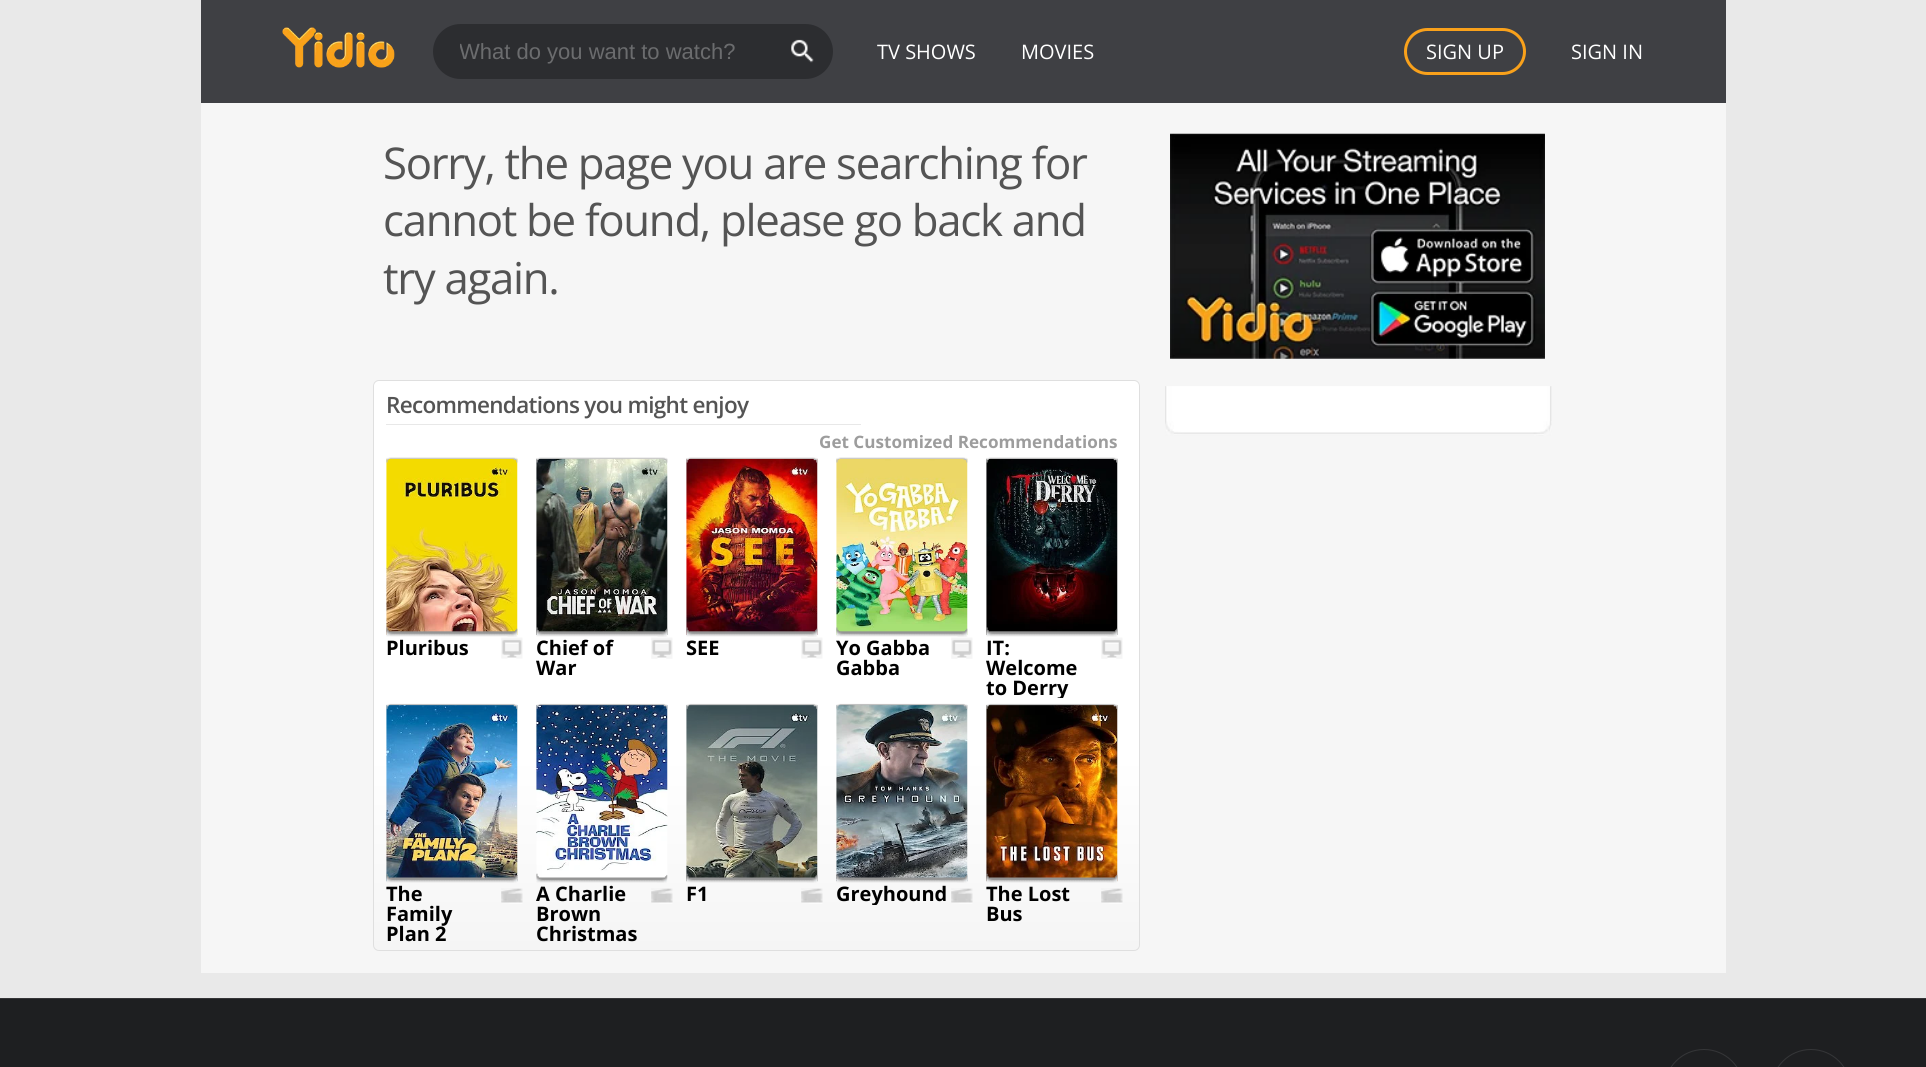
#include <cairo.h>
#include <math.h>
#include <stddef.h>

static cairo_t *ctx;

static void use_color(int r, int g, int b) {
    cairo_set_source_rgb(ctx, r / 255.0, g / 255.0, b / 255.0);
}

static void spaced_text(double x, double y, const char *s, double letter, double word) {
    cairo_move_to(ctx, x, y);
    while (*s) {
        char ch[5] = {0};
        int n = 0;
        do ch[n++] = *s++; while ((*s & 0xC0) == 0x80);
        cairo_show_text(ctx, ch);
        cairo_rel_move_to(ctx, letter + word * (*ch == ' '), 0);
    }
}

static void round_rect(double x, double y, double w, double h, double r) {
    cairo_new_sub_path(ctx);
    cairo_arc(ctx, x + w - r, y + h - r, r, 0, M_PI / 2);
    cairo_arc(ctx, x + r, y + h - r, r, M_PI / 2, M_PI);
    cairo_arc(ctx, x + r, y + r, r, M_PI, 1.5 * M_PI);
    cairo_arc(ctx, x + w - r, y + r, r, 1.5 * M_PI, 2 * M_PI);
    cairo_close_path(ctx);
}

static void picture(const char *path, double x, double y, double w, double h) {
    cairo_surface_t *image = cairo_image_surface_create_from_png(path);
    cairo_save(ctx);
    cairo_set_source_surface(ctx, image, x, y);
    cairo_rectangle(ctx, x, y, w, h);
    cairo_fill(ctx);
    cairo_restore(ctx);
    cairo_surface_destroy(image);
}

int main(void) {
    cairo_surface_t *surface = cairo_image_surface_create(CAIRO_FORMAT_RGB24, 1926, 1067);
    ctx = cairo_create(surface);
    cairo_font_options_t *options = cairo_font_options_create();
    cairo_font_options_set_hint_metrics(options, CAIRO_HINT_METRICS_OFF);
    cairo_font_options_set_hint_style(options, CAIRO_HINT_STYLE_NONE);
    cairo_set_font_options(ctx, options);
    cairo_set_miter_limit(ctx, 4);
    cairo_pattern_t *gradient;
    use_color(233, 233, 233);
    cairo_paint(ctx);
    use_color(246, 246, 246);
    cairo_rectangle(ctx, 201, 103, 1525, 870);
    cairo_fill(ctx);
    use_color(63, 64, 68);
    cairo_rectangle(ctx, 201, 0, 1525, 103);
    cairo_fill(ctx);
    picture("img1.png", 282, 27, 113, 41);
    use_color(44, 45, 48);
    round_rect(433, 24, 400, 55, 27.5);
    cairo_fill(ctx);
    cairo_save(ctx);
    cairo_rectangle(ctx, 460, 39, 318, 26);
    cairo_clip(ctx);
    cairo_select_font_face(ctx, "Liberation Sans", CAIRO_FONT_SLANT_NORMAL, CAIRO_FONT_WEIGHT_NORMAL);
    cairo_set_font_size(ctx, 22);
    use_color(107, 108, 110);
    cairo_move_to(ctx, 459, 59);
    cairo_show_text(ctx, "What do you want to watch?");
    cairo_restore(ctx);
    picture("img2.png", 791, 39, 23, 24);
    cairo_select_font_face(ctx, "Open Sans", CAIRO_FONT_SLANT_NORMAL, CAIRO_FONT_WEIGHT_NORMAL);
    cairo_set_font_size(ctx, 20);
    use_color(255, 255, 255);
    cairo_move_to(ctx, 877, 59);
    cairo_show_text(ctx, "TV SHOWS");
    cairo_move_to(ctx, 1021, 59);
    cairo_show_text(ctx, "MOVIES");
    round_rect(1405.5, 29.5, 119, 44, 22);
    use_color(249, 161, 27);
    cairo_set_line_width(ctx, 3);
    cairo_stroke(ctx);
    use_color(255, 255, 255);
    cairo_move_to(ctx, 1426, 59);
    cairo_show_text(ctx, "SIGN UP");
    cairo_move_to(ctx, 1571, 59);
    cairo_show_text(ctx, "SIGN IN");
    cairo_set_font_size(ctx, 43.75);
    use_color(84, 84, 84);
    spaced_text(383, 179, "Sorry, the page you are searching for", -1.3, 0);
    spaced_text(383, 236, "cannot be found, please go back and", -1.3, 0);
    spaced_text(383, 294, "try again.", -1.3, 0);
    cairo_save(ctx);
    round_rect(373, 380, 767, 571, 6);
    cairo_clip(ctx);
    gradient = cairo_pattern_create_linear(756, 381, 756, 950);
    cairo_pattern_add_color_stop_rgba(gradient, 0.66, 1, 1, 1, 1);
    cairo_pattern_add_color_stop_rgba(gradient, 1, 0.961, 0.961, 0.961, 1);
    cairo_set_source(ctx, gradient);
    cairo_pattern_destroy(gradient);
    cairo_rectangle(ctx, 373, 381, 767, 569);
    cairo_fill(ctx);
    cairo_restore(ctx);
    round_rect(373.5, 380.5, 766, 570, 5.5);
    use_color(223, 223, 223);
    cairo_set_line_width(ctx, 1);
    cairo_stroke(ctx);
    use_color(232, 232, 232);
    cairo_rectangle(ctx, 386, 424, 475, 1);
    cairo_fill(ctx);
    cairo_select_font_face(ctx, "Open Sans SemiBold", CAIRO_FONT_SLANT_NORMAL, CAIRO_FONT_WEIGHT_NORMAL);
    cairo_set_font_size(ctx, 22.5);
    use_color(84, 84, 84);
    spaced_text(386, 413, "Recommendations you might enjoy", -0.7, 0);
    cairo_select_font_face(ctx, "Open Sans", CAIRO_FONT_SLANT_NORMAL, CAIRO_FONT_WEIGHT_BOLD);
    cairo_set_font_size(ctx, 17.1);
    use_color(157, 157, 157);
    cairo_move_to(ctx, 819, 448);
    cairo_show_text(ctx, "Get Customized Recommendations");
    picture("img4.png", 386, 458, 132, 177);
    picture("img3.png", 386, 457, 132, 6);
    picture("img5.png", 386, 627, 132, 10);
    cairo_set_font_size(ctx, 20);
    use_color(0, 0, 0);
    cairo_move_to(ctx, 386, 655);
    cairo_show_text(ctx, "Pluribus");
    picture("img6.png", 501, 637, 22, 22);
    picture("img8.png", 536, 458, 132, 177);
    picture("img7.png", 536, 457, 132, 6);
    picture("img9.png", 536, 627, 132, 10);
    cairo_move_to(ctx, 536, 655);
    cairo_show_text(ctx, "Chief of");
    cairo_move_to(ctx, 536, 675);
    cairo_show_text(ctx, "War");
    picture("img10.png", 651, 637, 22, 22);
    picture("img12.png", 686, 458, 132, 177);
    picture("img11.png", 686, 457, 132, 6);
    picture("img13.png", 686, 627, 132, 10);
    cairo_move_to(ctx, 686, 655);
    cairo_show_text(ctx, "SEE");
    picture("img6.png", 801, 637, 22, 22);
    picture("img15.png", 836, 458, 132, 177);
    picture("img14.png", 836, 457, 132, 6);
    picture("img16.png", 836, 627, 132, 10);
    cairo_move_to(ctx, 836, 655);
    cairo_show_text(ctx, "Yo Gabba");
    cairo_move_to(ctx, 836, 675);
    cairo_show_text(ctx, "Gabba");
    picture("img10.png", 951, 637, 22, 22);
    picture("img18.png", 986, 458, 132, 177);
    picture("img17.png", 986, 457, 132, 6);
    picture("img19.png", 986, 627, 132, 10);
    cairo_move_to(ctx, 986, 655);
    cairo_show_text(ctx, "IT:");
    cairo_move_to(ctx, 986, 675);
    cairo_show_text(ctx, "Welcome");
    cairo_save(ctx);
    cairo_rectangle(ctx, 986, 451, 150, 247);
    cairo_clip(ctx);
    cairo_move_to(ctx, 986, 695);
    cairo_show_text(ctx, "to Derry");
    cairo_restore(ctx);
    picture("img10.png", 1101, 637, 22, 22);
    picture("img21.png", 386, 705, 132, 177);
    picture("img20.png", 386, 703, 132, 6);
    picture("img22.png", 386, 873, 132, 10);
    cairo_move_to(ctx, 386, 901);
    cairo_show_text(ctx, "The");
    cairo_move_to(ctx, 386, 921);
    cairo_show_text(ctx, "Family");
    cairo_move_to(ctx, 386, 941);
    cairo_show_text(ctx, "Plan 2");
    picture("img23.png", 501, 888, 22, 16);
    picture("img25.png", 536, 705, 132, 176);
    picture("img24.png", 536, 703, 132, 6);
    picture("img26.png", 536, 873, 132, 10);
    cairo_move_to(ctx, 536, 901);
    cairo_show_text(ctx, "A Charlie");
    cairo_move_to(ctx, 536, 921);
    cairo_show_text(ctx, "Brown");
    cairo_move_to(ctx, 536, 941);
    cairo_show_text(ctx, "Christmas");
    picture("img23.png", 651, 888, 22, 16);
    picture("img28.png", 686, 705, 132, 177);
    picture("img27.png", 686, 703, 132, 6);
    picture("img29.png", 686, 873, 132, 10);
    cairo_move_to(ctx, 686, 901);
    cairo_show_text(ctx, "F1");
    picture("img23.png", 801, 888, 22, 16);
    picture("img31.png", 836, 705, 132, 177);
    picture("img30.png", 836, 703, 132, 6);
    picture("img32.png", 836, 873, 132, 10);
    cairo_save(ctx);
    cairo_rectangle(ctx, 836, 698, 150, 207);
    cairo_clip(ctx);
    cairo_move_to(ctx, 836, 901);
    cairo_show_text(ctx, "Greyhound");
    cairo_restore(ctx);
    picture("img23.png", 951, 888, 22, 16);
    picture("img34.png", 986, 705, 132, 177);
    picture("img33.png", 986, 703, 132, 6);
    picture("img35.png", 986, 873, 132, 10);
    cairo_move_to(ctx, 986, 901);
    cairo_show_text(ctx, "The Lost");
    cairo_move_to(ctx, 986, 921);
    cairo_show_text(ctx, "Bus");
    picture("img23.png", 1101, 888, 22, 16);
    picture("img36.png", 1170, 133, 375, 226);
    picture("img37.png", 1165, 386, 387, 1);
    picture("img38.png", 1165, 386, 387, 50);
    use_color(30, 31, 33);
    cairo_rectangle(ctx, 0, 999, 1926, 68);
    cairo_fill(ctx);
    use_color(53, 54, 56);
    cairo_rectangle(ctx, 0, 998, 1926, 1);
    cairo_fill(ctx);
    round_rect(1664.5, 1049.5, 79, 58, 39.5);
    cairo_stroke(ctx);
    round_rect(1771.5, 1049.5, 79, 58, 39.5);
    cairo_stroke(ctx);
    cairo_surface_write_to_png(surface, "result.png");
    cairo_font_options_destroy(options);
    cairo_destroy(ctx);
    cairo_surface_destroy(surface);
    return 0;
}
